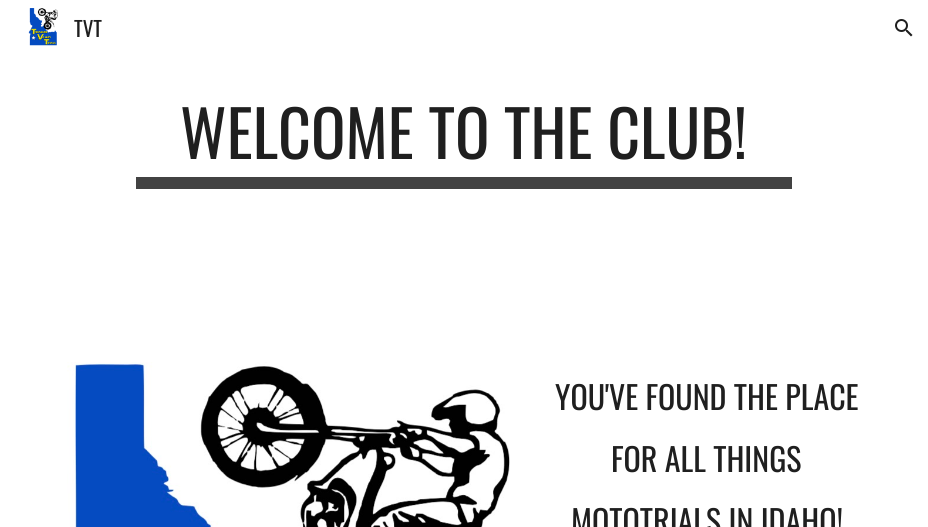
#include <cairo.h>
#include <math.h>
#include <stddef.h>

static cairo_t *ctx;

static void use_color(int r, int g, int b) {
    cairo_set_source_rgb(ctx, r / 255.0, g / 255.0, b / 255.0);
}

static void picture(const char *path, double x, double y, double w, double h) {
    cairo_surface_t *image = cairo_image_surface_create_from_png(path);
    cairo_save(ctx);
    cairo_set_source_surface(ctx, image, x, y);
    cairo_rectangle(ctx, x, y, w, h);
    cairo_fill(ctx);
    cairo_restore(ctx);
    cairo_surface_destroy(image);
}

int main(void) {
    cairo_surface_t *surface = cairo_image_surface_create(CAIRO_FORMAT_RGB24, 928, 527);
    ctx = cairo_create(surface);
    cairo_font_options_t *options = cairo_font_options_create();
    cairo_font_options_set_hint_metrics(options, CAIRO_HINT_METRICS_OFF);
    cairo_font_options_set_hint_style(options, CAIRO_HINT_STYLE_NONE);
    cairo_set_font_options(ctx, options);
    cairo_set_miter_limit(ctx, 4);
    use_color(255, 255, 255);
    cairo_paint(ctx);
    picture("img1.png", 28, 8, 30, 38);
    cairo_select_font_face(ctx, "Oswald", CAIRO_FONT_SLANT_NORMAL, CAIRO_FONT_WEIGHT_NORMAL);
    cairo_set_font_size(ctx, 21);
    use_color(31, 31, 31);
    cairo_move_to(ctx, 74, 37);
    cairo_show_text(ctx, "TVT");
    picture("img2.png", 895, 19, 18, 18);
    cairo_set_font_size(ctx, 64);
    cairo_move_to(ctx, 180, 159);
    cairo_show_text(ctx, "WELCOME TO THE CLUB!");
    use_color(66, 66, 66);
    cairo_rectangle(ctx, 136, 177, 656, 12);
    cairo_fill(ctx);
    picture("img3.png", 67, 362, 443, 165);
    cairo_set_font_size(ctx, 32);
    use_color(31, 31, 31);
    cairo_move_to(ctx, 555, 410);
    cairo_show_text(ctx, "YOU'VE FOUND THE PLACE");
    cairo_move_to(ctx, 611, 472);
    cairo_show_text(ctx, "FOR ALL THINGS");
    cairo_move_to(ctx, 571, 534);
    cairo_show_text(ctx, "MOTOTRIALS IN IDAHO!");
    cairo_surface_write_to_png(surface, "result.png");
    cairo_font_options_destroy(options);
    cairo_destroy(ctx);
    cairo_surface_destroy(surface);
    return 0;
}
